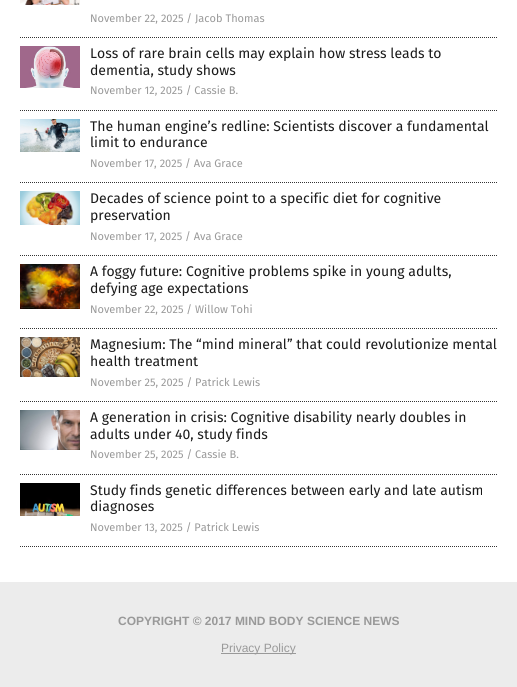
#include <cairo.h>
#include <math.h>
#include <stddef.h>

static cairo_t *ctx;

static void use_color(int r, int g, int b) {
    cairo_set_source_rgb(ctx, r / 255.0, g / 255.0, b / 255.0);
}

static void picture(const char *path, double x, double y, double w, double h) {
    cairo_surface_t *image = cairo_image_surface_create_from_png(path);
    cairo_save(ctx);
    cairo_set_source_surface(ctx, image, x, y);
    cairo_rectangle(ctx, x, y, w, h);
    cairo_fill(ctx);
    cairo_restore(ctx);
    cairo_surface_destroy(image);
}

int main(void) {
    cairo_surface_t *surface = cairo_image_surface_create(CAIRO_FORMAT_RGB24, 517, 687);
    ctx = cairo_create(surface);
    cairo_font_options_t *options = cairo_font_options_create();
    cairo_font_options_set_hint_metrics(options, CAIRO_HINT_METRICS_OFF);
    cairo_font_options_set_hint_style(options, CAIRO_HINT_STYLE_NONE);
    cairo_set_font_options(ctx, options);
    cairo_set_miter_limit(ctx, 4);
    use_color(236, 236, 236);
    cairo_paint(ctx);
    use_color(255, 255, 255);
    cairo_rectangle(ctx, 0, 0, 517, 582);
    cairo_fill(ctx);
    cairo_new_path(ctx);
    cairo_move_to(ctx, 20, 37.5);
    cairo_line_to(ctx, 497, 37.5);
    use_color(52, 52, 52);
    cairo_set_line_width(ctx, 1);
    cairo_set_dash(ctx, (double[]){1, 1}, 2, 0);
    cairo_stroke(ctx);
    picture("img1.png", 20, 0, 60, 5);
    cairo_select_font_face(ctx, "Fira Sans", CAIRO_FONT_SLANT_NORMAL, CAIRO_FONT_WEIGHT_NORMAL);
    cairo_set_font_size(ctx, 11);
    use_color(153, 153, 153);
    cairo_move_to(ctx, 90, 22);
    cairo_show_text(ctx, "November 22, 2025 / Jacob Thomas");
    cairo_new_path(ctx);
    cairo_move_to(ctx, 20, 110.5);
    cairo_line_to(ctx, 497, 110.5);
    use_color(52, 52, 52);
    cairo_stroke(ctx);
    picture("img2.png", 20, 46, 60, 42);
    cairo_set_font_size(ctx, 14);
    use_color(26, 26, 26);
    cairo_move_to(ctx, 90, 58);
    cairo_show_text(ctx, "Loss of rare brain cells may explain how stress leads to");
    cairo_move_to(ctx, 90, 75);
    cairo_show_text(ctx, "dementia, study shows");
    cairo_set_font_size(ctx, 11);
    use_color(153, 153, 153);
    cairo_move_to(ctx, 90, 94);
    cairo_show_text(ctx, "November 12, 2025 / Cassie B.");
    cairo_new_path(ctx);
    cairo_move_to(ctx, 20, 182.5);
    cairo_line_to(ctx, 497, 182.5);
    use_color(52, 52, 52);
    cairo_stroke(ctx);
    picture("img3.png", 20, 119, 60, 33);
    cairo_set_font_size(ctx, 14);
    use_color(26, 26, 26);
    cairo_move_to(ctx, 90, 131);
    cairo_show_text(ctx, "The human engine’s redline: Scientists discover a fundamental");
    cairo_move_to(ctx, 90, 147);
    cairo_show_text(ctx, "limit to endurance");
    cairo_set_font_size(ctx, 11);
    use_color(153, 153, 153);
    cairo_move_to(ctx, 90, 167);
    cairo_show_text(ctx, "November 17, 2025 / Ava Grace");
    cairo_new_path(ctx);
    cairo_move_to(ctx, 20, 255.5);
    cairo_line_to(ctx, 497, 255.5);
    use_color(52, 52, 52);
    cairo_stroke(ctx);
    picture("img4.png", 20, 191, 60, 34);
    cairo_set_font_size(ctx, 14);
    use_color(26, 26, 26);
    cairo_move_to(ctx, 90, 203);
    cairo_show_text(ctx, "Decades of science point to a specific diet for cognitive");
    cairo_move_to(ctx, 90, 220);
    cairo_show_text(ctx, "preservation");
    cairo_set_font_size(ctx, 11);
    use_color(153, 153, 153);
    cairo_move_to(ctx, 90, 240);
    cairo_show_text(ctx, "November 17, 2025 / Ava Grace");
    cairo_new_path(ctx);
    cairo_move_to(ctx, 20, 328.5);
    cairo_line_to(ctx, 497, 328.5);
    use_color(52, 52, 52);
    cairo_stroke(ctx);
    picture("img5.png", 20, 264, 60, 45);
    cairo_set_font_size(ctx, 14);
    use_color(26, 26, 26);
    cairo_move_to(ctx, 90, 276);
    cairo_show_text(ctx, "A foggy future: Cognitive problems spike in young adults,");
    cairo_move_to(ctx, 90, 293);
    cairo_show_text(ctx, "defying age expectations");
    cairo_set_font_size(ctx, 11);
    use_color(153, 153, 153);
    cairo_move_to(ctx, 90, 313);
    cairo_show_text(ctx, "November 22, 2025 / Willow Tohi");
    cairo_new_path(ctx);
    cairo_move_to(ctx, 20, 401.5);
    cairo_line_to(ctx, 497, 401.5);
    use_color(52, 52, 52);
    cairo_stroke(ctx);
    picture("img6.png", 20, 337, 60, 40);
    cairo_set_font_size(ctx, 14);
    use_color(26, 26, 26);
    cairo_move_to(ctx, 90, 349);
    cairo_show_text(ctx, "Magnesium: The “mind mineral” that could revolutionize mental");
    cairo_move_to(ctx, 90, 366);
    cairo_show_text(ctx, "health treatment");
    cairo_set_font_size(ctx, 11);
    use_color(153, 153, 153);
    cairo_move_to(ctx, 90, 386);
    cairo_show_text(ctx, "November 25, 2025 / Patrick Lewis");
    cairo_new_path(ctx);
    cairo_move_to(ctx, 20, 474.5);
    cairo_line_to(ctx, 497, 474.5);
    use_color(52, 52, 52);
    cairo_stroke(ctx);
    picture("img7.png", 20, 410, 60, 40);
    cairo_set_font_size(ctx, 14);
    use_color(26, 26, 26);
    cairo_move_to(ctx, 90, 422);
    cairo_show_text(ctx, "A generation in crisis: Cognitive disability nearly doubles in");
    cairo_move_to(ctx, 90, 439);
    cairo_show_text(ctx, "adults under 40, study finds");
    cairo_set_font_size(ctx, 11);
    use_color(153, 153, 153);
    cairo_move_to(ctx, 90, 458);
    cairo_show_text(ctx, "November 25, 2025 / Cassie B.");
    cairo_new_path(ctx);
    cairo_move_to(ctx, 20, 546.5);
    cairo_line_to(ctx, 497, 546.5);
    use_color(52, 52, 52);
    cairo_stroke(ctx);
    picture("img8.png", 20, 483, 60, 33);
    cairo_set_font_size(ctx, 14);
    use_color(26, 26, 26);
    cairo_move_to(ctx, 90, 495);
    cairo_show_text(ctx, "Study finds genetic differences between early and late autism");
    cairo_move_to(ctx, 90, 511);
    cairo_show_text(ctx, "diagnoses");
    cairo_set_font_size(ctx, 11);
    use_color(153, 153, 153);
    cairo_move_to(ctx, 90, 531);
    cairo_show_text(ctx, "November 13, 2025 / Patrick Lewis");
    cairo_select_font_face(ctx, "Liberation Sans", CAIRO_FONT_SLANT_NORMAL, CAIRO_FONT_WEIGHT_BOLD);
    cairo_set_font_size(ctx, 12);
    cairo_move_to(ctx, 118, 625);
    cairo_show_text(ctx, "COPYRIGHT © 2017 MIND BODY SCIENCE NEWS");
    cairo_rectangle(ctx, 221, 653, 75, 1);
    cairo_fill(ctx);
    cairo_select_font_face(ctx, "Liberation Sans", CAIRO_FONT_SLANT_NORMAL, CAIRO_FONT_WEIGHT_NORMAL);
    cairo_move_to(ctx, 221, 652);
    cairo_show_text(ctx, "Privacy Policy");
    cairo_surface_write_to_png(surface, "result.png");
    cairo_font_options_destroy(options);
    cairo_destroy(ctx);
    cairo_surface_destroy(surface);
    return 0;
}
